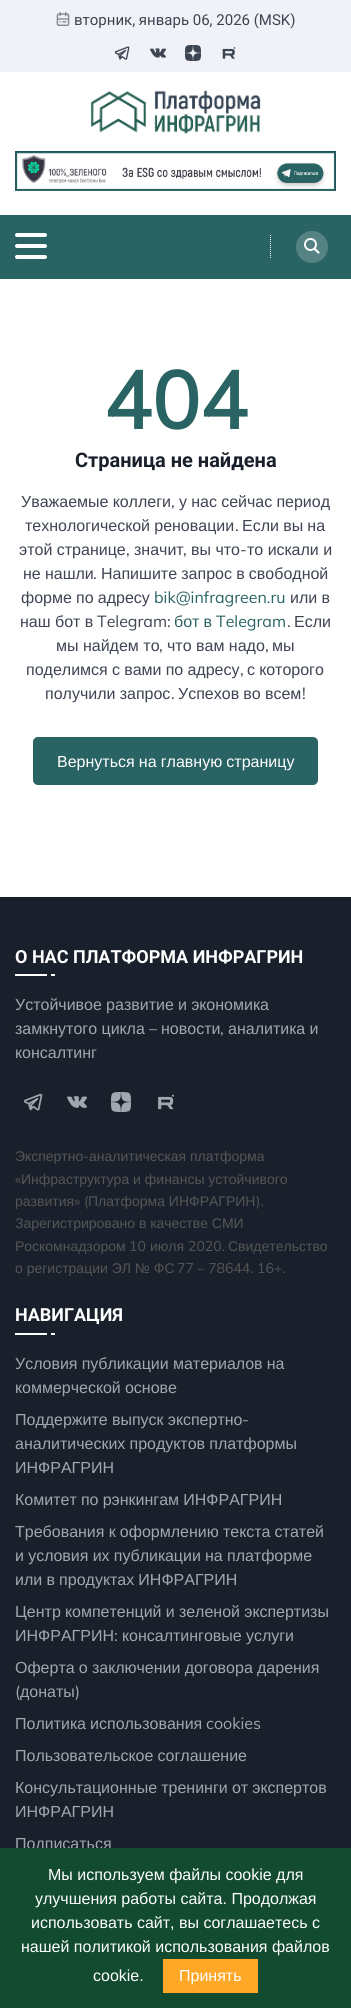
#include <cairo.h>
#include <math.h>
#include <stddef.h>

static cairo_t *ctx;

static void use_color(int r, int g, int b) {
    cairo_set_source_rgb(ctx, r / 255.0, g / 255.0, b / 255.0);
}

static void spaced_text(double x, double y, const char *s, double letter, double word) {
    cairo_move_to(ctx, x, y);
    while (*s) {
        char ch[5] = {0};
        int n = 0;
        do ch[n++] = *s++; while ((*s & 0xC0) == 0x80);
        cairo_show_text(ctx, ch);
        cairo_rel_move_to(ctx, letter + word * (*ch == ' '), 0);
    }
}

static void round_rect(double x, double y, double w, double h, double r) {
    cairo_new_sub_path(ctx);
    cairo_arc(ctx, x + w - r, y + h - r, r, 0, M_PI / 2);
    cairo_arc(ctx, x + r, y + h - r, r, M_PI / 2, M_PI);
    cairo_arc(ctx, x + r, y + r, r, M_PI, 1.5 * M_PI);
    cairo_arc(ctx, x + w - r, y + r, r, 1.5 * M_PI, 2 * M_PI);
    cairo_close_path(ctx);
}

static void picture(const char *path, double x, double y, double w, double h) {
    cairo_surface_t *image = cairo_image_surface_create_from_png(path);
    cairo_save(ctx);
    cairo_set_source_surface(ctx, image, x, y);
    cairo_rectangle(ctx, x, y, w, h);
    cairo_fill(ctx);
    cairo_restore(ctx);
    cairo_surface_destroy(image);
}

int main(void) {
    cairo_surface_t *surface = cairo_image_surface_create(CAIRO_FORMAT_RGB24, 351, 2008);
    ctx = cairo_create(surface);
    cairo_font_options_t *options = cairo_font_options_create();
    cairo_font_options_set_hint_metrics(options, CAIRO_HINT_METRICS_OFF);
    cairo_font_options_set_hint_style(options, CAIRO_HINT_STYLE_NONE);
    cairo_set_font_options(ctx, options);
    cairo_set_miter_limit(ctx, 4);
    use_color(255, 255, 255);
    cairo_paint(ctx);
    use_color(240, 242, 247);
    cairo_rectangle(ctx, 0, 0, 351, 72);
    cairo_fill(ctx);
    picture("img1.png", 56, 12, 14, 14);
    cairo_select_font_face(ctx, "Roboto", CAIRO_FONT_SLANT_NORMAL, CAIRO_FONT_WEIGHT_NORMAL);
    cairo_set_font_size(ctx, 15);
    use_color(61, 68, 82);
    cairo_move_to(ctx, 74, 25);
    cairo_show_text(ctx, "вторник, январь 06, 2026 (MSK)");
    picture("img2.png", 114, 46, 16, 14);
    picture("img3.png", 150, 48, 16, 10);
    picture("img4.png", 185, 45, 16, 16);
    picture("img5.png", 222, 47, 14, 12);
    picture("img6.png", 90, 90, 171, 44);
    picture("img7.png", 15, 151, 321, 40);
    use_color(42, 99, 99);
    cairo_rectangle(ctx, 0, 215, 351, 64);
    cairo_fill(ctx);
    use_color(255, 255, 255);
    round_rect(15, 233, 32, 4, 2);
    cairo_fill(ctx);
    round_rect(15, 244, 32, 4, 2);
    cairo_fill(ctx);
    round_rect(15, 255, 32, 4, 2);
    cairo_fill(ctx);
    cairo_new_path(ctx);
    cairo_move_to(ctx, 270.5, 235);
    cairo_line_to(ctx, 270.5, 259);
    cairo_set_line_width(ctx, 1);
    cairo_set_dash(ctx, (double[]){1, 1}, 2, 0);
    cairo_stroke(ctx);
    use_color(85, 130, 130);
    cairo_arc(ctx, 312, 247, 16, 0, 2 * M_PI);
    cairo_fill(ctx);
    picture("img8.png", 304, 238, 16, 16);
    cairo_select_font_face(ctx, "Muli", CAIRO_FONT_SLANT_NORMAL, CAIRO_FONT_WEIGHT_BOLD);
    cairo_set_font_size(ctx, 80);
    use_color(42, 99, 99);
    cairo_move_to(ctx, 104, 429);
    cairo_show_text(ctx, "404");
    cairo_select_font_face(ctx, "Roboto", CAIRO_FONT_SLANT_NORMAL, CAIRO_FONT_WEIGHT_BOLD);
    cairo_set_font_size(ctx, 20);
    use_color(26, 32, 43);
    cairo_move_to(ctx, 75, 467);
    cairo_show_text(ctx, "Страница не найдена");
    cairo_select_font_face(ctx, "Liberation Sans", CAIRO_FONT_SLANT_NORMAL, CAIRO_FONT_WEIGHT_NORMAL);
    cairo_set_font_size(ctx, 16);
    use_color(61, 68, 82);
    spaced_text(21, 507, "Уважаемые коллеги", 0, -0.25);
    cairo_select_font_face(ctx, "Muli", CAIRO_FONT_SLANT_NORMAL, CAIRO_FONT_WEIGHT_NORMAL);
    cairo_move_to(ctx, 171, 507);
    cairo_show_text(ctx, ",");
    cairo_select_font_face(ctx, "Liberation Sans", CAIRO_FONT_SLANT_NORMAL, CAIRO_FONT_WEIGHT_NORMAL);
    spaced_text(179, 507, "у нас сейчас период", 0, -0.25);
    spaced_text(25, 531, "технологической реновации", 0, -0.25);
    cairo_select_font_face(ctx, "Muli", CAIRO_FONT_SLANT_NORMAL, CAIRO_FONT_WEIGHT_NORMAL);
    cairo_move_to(ctx, 235, 531);
    cairo_show_text(ctx, ".");
    cairo_select_font_face(ctx, "Liberation Sans", CAIRO_FONT_SLANT_NORMAL, CAIRO_FONT_WEIGHT_NORMAL);
    spaced_text(242, 531, "Если вы на", 0, -0.25);
    cairo_move_to(ctx, 19, 555);
    cairo_show_text(ctx, "этой странице");
    cairo_move_to(ctx, 134, 555);
    cairo_show_text(ctx, "значит");
    cairo_move_to(ctx, 191, 555);
    cairo_show_text(ctx, "вы что");
    cairo_select_font_face(ctx, "Muli", CAIRO_FONT_SLANT_NORMAL, CAIRO_FONT_WEIGHT_NORMAL);
    cairo_move_to(ctx, 240, 555);
    cairo_show_text(ctx, "-");
    cairo_select_font_face(ctx, "Liberation Sans", CAIRO_FONT_SLANT_NORMAL, CAIRO_FONT_WEIGHT_NORMAL);
    cairo_move_to(ctx, 247, 555);
    cairo_show_text(ctx, "то искали и");
    cairo_select_font_face(ctx, "Muli", CAIRO_FONT_SLANT_NORMAL, CAIRO_FONT_WEIGHT_NORMAL);
    cairo_move_to(ctx, 126, 555);
    cairo_show_text(ctx, ",");
    cairo_move_to(ctx, 183, 555);
    cairo_show_text(ctx, ",");
    cairo_select_font_face(ctx, "Liberation Sans", CAIRO_FONT_SLANT_NORMAL, CAIRO_FONT_WEIGHT_NORMAL);
    spaced_text(23, 579, "не нашли", 0, -0.25);
    cairo_select_font_face(ctx, "Muli", CAIRO_FONT_SLANT_NORMAL, CAIRO_FONT_WEIGHT_NORMAL);
    cairo_move_to(ctx, 93, 579);
    cairo_show_text(ctx, ".");
    cairo_select_font_face(ctx, "Liberation Sans", CAIRO_FONT_SLANT_NORMAL, CAIRO_FONT_WEIGHT_NORMAL);
    spaced_text(101, 579, "Напишите запрос в свободной", 0, -0.25);
    spaced_text(21, 603, "форме по адресу", 0, -0.25);
    cairo_select_font_face(ctx, "Muli", CAIRO_FONT_SLANT_NORMAL, CAIRO_FONT_WEIGHT_NORMAL);
    use_color(42, 99, 99);
    cairo_move_to(ctx, 154, 603);
    cairo_show_text(ctx, "bik@infragreen.ru");
    cairo_select_font_face(ctx, "Liberation Sans", CAIRO_FONT_SLANT_NORMAL, CAIRO_FONT_WEIGHT_NORMAL);
    use_color(61, 68, 82);
    spaced_text(290, 603, "или в", 0, -0.25);
    cairo_move_to(ctx, 20, 627);
    cairo_show_text(ctx, "наш бот в");
    cairo_select_font_face(ctx, "Muli", CAIRO_FONT_SLANT_NORMAL, CAIRO_FONT_WEIGHT_NORMAL);
    cairo_move_to(ctx, 97, 627);
    cairo_show_text(ctx, "Telegram:");
    cairo_select_font_face(ctx, "Liberation Sans", CAIRO_FONT_SLANT_NORMAL, CAIRO_FONT_WEIGHT_NORMAL);
    use_color(42, 99, 99);
    spaced_text(174, 627, "бот в", 0, -0.25);
    cairo_select_font_face(ctx, "Muli", CAIRO_FONT_SLANT_NORMAL, CAIRO_FONT_WEIGHT_NORMAL);
    cairo_move_to(ctx, 216, 627);
    cairo_show_text(ctx, "Telegram");
    use_color(61, 68, 82);
    cairo_move_to(ctx, 287, 627);
    cairo_show_text(ctx, ".");
    cairo_select_font_face(ctx, "Liberation Sans", CAIRO_FONT_SLANT_NORMAL, CAIRO_FONT_WEIGHT_NORMAL);
    cairo_move_to(ctx, 294, 627);
    cairo_show_text(ctx, "Если");
    cairo_move_to(ctx, 56, 651);
    cairo_show_text(ctx, "мы найдем то");
    cairo_select_font_face(ctx, "Muli", CAIRO_FONT_SLANT_NORMAL, CAIRO_FONT_WEIGHT_NORMAL);
    cairo_move_to(ctx, 159, 651);
    cairo_show_text(ctx, ",");
    cairo_select_font_face(ctx, "Liberation Sans", CAIRO_FONT_SLANT_NORMAL, CAIRO_FONT_WEIGHT_NORMAL);
    cairo_move_to(ctx, 167, 651);
    cairo_show_text(ctx, "что вам надо");
    cairo_select_font_face(ctx, "Muli", CAIRO_FONT_SLANT_NORMAL, CAIRO_FONT_WEIGHT_NORMAL);
    cairo_move_to(ctx, 265, 651);
    cairo_show_text(ctx, ",");
    cairo_select_font_face(ctx, "Liberation Sans", CAIRO_FONT_SLANT_NORMAL, CAIRO_FONT_WEIGHT_NORMAL);
    cairo_move_to(ctx, 272, 651);
    cairo_show_text(ctx, "мы");
    spaced_text(26, 675, "поделимся с вами по адресу", 0, -0.25);
    cairo_select_font_face(ctx, "Muli", CAIRO_FONT_SLANT_NORMAL, CAIRO_FONT_WEIGHT_NORMAL);
    cairo_move_to(ctx, 240, 675);
    cairo_show_text(ctx, ",");
    cairo_select_font_face(ctx, "Liberation Sans", CAIRO_FONT_SLANT_NORMAL, CAIRO_FONT_WEIGHT_NORMAL);
    spaced_text(247, 675, "с которого", 0, -0.25);
    spaced_text(45, 699, "получили запрос", 0, -0.25);
    cairo_select_font_face(ctx, "Muli", CAIRO_FONT_SLANT_NORMAL, CAIRO_FONT_WEIGHT_NORMAL);
    cairo_move_to(ctx, 171, 699);
    cairo_show_text(ctx, ".");
    cairo_select_font_face(ctx, "Liberation Sans", CAIRO_FONT_SLANT_NORMAL, CAIRO_FONT_WEIGHT_NORMAL);
    spaced_text(178, 699, "Успехов во всем", 0, -0.25);
    cairo_select_font_face(ctx, "Muli", CAIRO_FONT_SLANT_NORMAL, CAIRO_FONT_WEIGHT_NORMAL);
    cairo_move_to(ctx, 302, 699);
    cairo_show_text(ctx, "!");
    use_color(42, 99, 99);
    round_rect(33, 737, 285, 48, 5);
    cairo_fill(ctx);
    cairo_select_font_face(ctx, "Liberation Sans", CAIRO_FONT_SLANT_NORMAL, CAIRO_FONT_WEIGHT_NORMAL);
    use_color(255, 255, 255);
    spaced_text(57, 767, "Вернуться на главную страницу", 0, -0.25);
    use_color(26, 32, 43);
    cairo_rectangle(ctx, 0, 897, 351, 951);
    cairo_fill(ctx);
    cairo_select_font_face(ctx, "Roboto", CAIRO_FONT_SLANT_NORMAL, CAIRO_FONT_WEIGHT_BOLD);
    cairo_set_font_size(ctx, 18);
    use_color(255, 255, 255);
    cairo_move_to(ctx, 15, 963);
    cairo_show_text(ctx, "О НАС ПЛАТФОРМА ИНФРАГРИН");
    cairo_rectangle(ctx, 15, 974, 32, 2);
    cairo_fill(ctx);
    cairo_rectangle(ctx, 51, 974, 4, 2);
    cairo_fill(ctx);
    cairo_select_font_face(ctx, "Liberation Sans", CAIRO_FONT_SLANT_NORMAL, CAIRO_FONT_WEIGHT_NORMAL);
    cairo_set_font_size(ctx, 16);
    use_color(161, 166, 177);
    spaced_text(15, 1010, "Устойчивое развитие и экономика", 0, -0.25);
    cairo_move_to(ctx, 15, 1034);
    cairo_show_text(ctx, "замкнутого цикла");
    cairo_select_font_face(ctx, "Muli", CAIRO_FONT_SLANT_NORMAL, CAIRO_FONT_WEIGHT_NORMAL);
    cairo_move_to(ctx, 149, 1034);
    cairo_show_text(ctx, "–");
    cairo_select_font_face(ctx, "Liberation Sans", CAIRO_FONT_SLANT_NORMAL, CAIRO_FONT_WEIGHT_NORMAL);
    cairo_move_to(ctx, 161, 1034);
    cairo_show_text(ctx, "новости");
    cairo_move_to(ctx, 228, 1034);
    cairo_show_text(ctx, "аналитика и");
    cairo_select_font_face(ctx, "Muli", CAIRO_FONT_SLANT_NORMAL, CAIRO_FONT_WEIGHT_NORMAL);
    cairo_move_to(ctx, 220, 1034);
    cairo_show_text(ctx, ",");
    cairo_select_font_face(ctx, "Liberation Sans", CAIRO_FONT_SLANT_NORMAL, CAIRO_FONT_WEIGHT_NORMAL);
    cairo_move_to(ctx, 15, 1058);
    cairo_show_text(ctx, "консалтинг");
    picture("img9.png", 23, 1093, 20, 18);
    picture("img10.png", 67, 1096, 20, 12);
    picture("img11.png", 111, 1092, 20, 20);
    picture("img12.png", 158, 1094, 16, 16);
    cairo_set_font_size(ctx, 14);
    use_color(85, 85, 85);
    cairo_move_to(ctx, 15, 1161);
    cairo_show_text(ctx, "Экспертно");
    cairo_select_font_face(ctx, "Muli", CAIRO_FONT_SLANT_NORMAL, CAIRO_FONT_WEIGHT_NORMAL);
    cairo_move_to(ctx, 83, 1161);
    cairo_show_text(ctx, "-");
    cairo_select_font_face(ctx, "Liberation Sans", CAIRO_FONT_SLANT_NORMAL, CAIRO_FONT_WEIGHT_NORMAL);
    cairo_move_to(ctx, 89, 1161);
    cairo_show_text(ctx, "аналитическая платформа");
    cairo_select_font_face(ctx, "Muli", CAIRO_FONT_SLANT_NORMAL, CAIRO_FONT_WEIGHT_NORMAL);
    cairo_move_to(ctx, 15, 1184);
    cairo_show_text(ctx, "«");
    cairo_select_font_face(ctx, "Liberation Sans", CAIRO_FONT_SLANT_NORMAL, CAIRO_FONT_WEIGHT_NORMAL);
    cairo_move_to(ctx, 21, 1184);
    cairo_show_text(ctx, "Инфраструктура и финансы устойчивого");
    cairo_move_to(ctx, 15, 1206);
    cairo_show_text(ctx, "развития");
    cairo_select_font_face(ctx, "Muli", CAIRO_FONT_SLANT_NORMAL, CAIRO_FONT_WEIGHT_NORMAL);
    cairo_move_to(ctx, 74, 1206);
    cairo_show_text(ctx, "» (");
    cairo_select_font_face(ctx, "Liberation Sans", CAIRO_FONT_SLANT_NORMAL, CAIRO_FONT_WEIGHT_NORMAL);
    cairo_move_to(ctx, 88, 1206);
    cairo_show_text(ctx, "Платформа ИНФРАГРИН");
    cairo_select_font_face(ctx, "Muli", CAIRO_FONT_SLANT_NORMAL, CAIRO_FONT_WEIGHT_NORMAL);
    cairo_move_to(ctx, 256, 1206);
    cairo_show_text(ctx, ").");
    cairo_select_font_face(ctx, "Liberation Sans", CAIRO_FONT_SLANT_NORMAL, CAIRO_FONT_WEIGHT_NORMAL);
    cairo_move_to(ctx, 15, 1228);
    cairo_show_text(ctx, "Зарегистрировано в качестве СМИ");
    cairo_move_to(ctx, 15, 1251);
    cairo_show_text(ctx, "Роскомнадзором");
    cairo_select_font_face(ctx, "Muli", CAIRO_FONT_SLANT_NORMAL, CAIRO_FONT_WEIGHT_NORMAL);
    cairo_move_to(ctx, 129, 1251);
    cairo_show_text(ctx, "10");
    cairo_select_font_face(ctx, "Liberation Sans", CAIRO_FONT_SLANT_NORMAL, CAIRO_FONT_WEIGHT_NORMAL);
    cairo_move_to(ctx, 150, 1251);
    cairo_show_text(ctx, "июля");
    cairo_select_font_face(ctx, "Muli", CAIRO_FONT_SLANT_NORMAL, CAIRO_FONT_WEIGHT_NORMAL);
    cairo_move_to(ctx, 188, 1251);
    cairo_show_text(ctx, "2020.");
    cairo_select_font_face(ctx, "Liberation Sans", CAIRO_FONT_SLANT_NORMAL, CAIRO_FONT_WEIGHT_NORMAL);
    cairo_move_to(ctx, 228, 1251);
    cairo_show_text(ctx, "Свидетельство");
    cairo_move_to(ctx, 15, 1273);
    cairo_show_text(ctx, "о регистрации ЭЛ № ФС");
    cairo_select_font_face(ctx, "Muli", CAIRO_FONT_SLANT_NORMAL, CAIRO_FONT_WEIGHT_NORMAL);
    cairo_move_to(ctx, 177, 1273);
    cairo_show_text(ctx, "77 – 78644. 16+.");
    cairo_select_font_face(ctx, "Roboto", CAIRO_FONT_SLANT_NORMAL, CAIRO_FONT_WEIGHT_BOLD);
    cairo_set_font_size(ctx, 18);
    use_color(255, 255, 255);
    cairo_move_to(ctx, 15, 1321);
    cairo_show_text(ctx, "НАВИГАЦИЯ");
    cairo_rectangle(ctx, 15, 1333, 32, 2);
    cairo_fill(ctx);
    cairo_rectangle(ctx, 51, 1333, 4, 2);
    cairo_fill(ctx);
    cairo_select_font_face(ctx, "Liberation Sans", CAIRO_FONT_SLANT_NORMAL, CAIRO_FONT_WEIGHT_NORMAL);
    cairo_set_font_size(ctx, 16);
    use_color(161, 166, 177);
    spaced_text(15, 1369, "Условия публикации материалов на", 0, -0.25);
    spaced_text(15, 1393, "коммерческой основе", 0, -0.25);
    spaced_text(15, 1425, "Поддержите выпуск экспертно", 0, -0.25);
    cairo_select_font_face(ctx, "Muli", CAIRO_FONT_SLANT_NORMAL, CAIRO_FONT_WEIGHT_NORMAL);
    cairo_move_to(ctx, 242, 1425);
    cairo_show_text(ctx, "-");
    cairo_select_font_face(ctx, "Liberation Sans", CAIRO_FONT_SLANT_NORMAL, CAIRO_FONT_WEIGHT_NORMAL);
    spaced_text(15, 1449, "аналитических продуктов платформы", 0, -0.25);
    cairo_move_to(ctx, 15, 1473);
    cairo_show_text(ctx, "ИНФРАГРИН");
    spaced_text(15, 1505, "Комитет по рэнкингам ИНФРАГРИН", 0, -0.25);
    spaced_text(15, 1537, "Требования к оформлению текста статей", 0, -0.25);
    spaced_text(15, 1561, "и условия их публикации на платформе", 0, -0.25);
    spaced_text(15, 1585, "или в продуктах ИНФРАГРИН", 0, -0.25);
    spaced_text(15, 1617, "Центр компетенций и зеленой экспертизы", 0, -0.25);
    cairo_move_to(ctx, 15, 1641);
    cairo_show_text(ctx, "ИНФРАГРИН");
    cairo_select_font_face(ctx, "Muli", CAIRO_FONT_SLANT_NORMAL, CAIRO_FONT_WEIGHT_NORMAL);
    cairo_move_to(ctx, 114, 1641);
    cairo_show_text(ctx, ":");
    cairo_select_font_face(ctx, "Liberation Sans", CAIRO_FONT_SLANT_NORMAL, CAIRO_FONT_WEIGHT_NORMAL);
    spaced_text(122, 1641, "консалтинговые услуги", 0, -0.25);
    spaced_text(15, 1673, "Оферта о заключении договора дарения", 0, -0.25);
    cairo_select_font_face(ctx, "Muli", CAIRO_FONT_SLANT_NORMAL, CAIRO_FONT_WEIGHT_NORMAL);
    cairo_move_to(ctx, 15, 1697);
    cairo_show_text(ctx, "(");
    cairo_select_font_face(ctx, "Liberation Sans", CAIRO_FONT_SLANT_NORMAL, CAIRO_FONT_WEIGHT_NORMAL);
    cairo_move_to(ctx, 20, 1697);
    cairo_show_text(ctx, "донаты");
    cairo_select_font_face(ctx, "Muli", CAIRO_FONT_SLANT_NORMAL, CAIRO_FONT_WEIGHT_NORMAL);
    cairo_move_to(ctx, 75, 1697);
    cairo_show_text(ctx, ")");
    cairo_select_font_face(ctx, "Liberation Sans", CAIRO_FONT_SLANT_NORMAL, CAIRO_FONT_WEIGHT_NORMAL);
    spaced_text(15, 1729, "Политика использования", 0, -0.25);
    cairo_select_font_face(ctx, "Muli", CAIRO_FONT_SLANT_NORMAL, CAIRO_FONT_WEIGHT_NORMAL);
    cairo_move_to(ctx, 206, 1729);
    cairo_show_text(ctx, "cookies");
    cairo_select_font_face(ctx, "Liberation Sans", CAIRO_FONT_SLANT_NORMAL, CAIRO_FONT_WEIGHT_NORMAL);
    spaced_text(15, 1761, "Пользовательское соглашение", 0, -0.25);
    spaced_text(15, 1793, "Консультационные тренинги от экспертов", 0, -0.25);
    cairo_move_to(ctx, 15, 1817);
    cairo_show_text(ctx, "ИНФРАГРИН");
    cairo_move_to(ctx, 15, 1849);
    cairo_show_text(ctx, "Подписаться");
    use_color(19, 75, 49);
    cairo_rectangle(ctx, 0, 1848, 351, 160);
    cairo_fill(ctx);
    use_color(255, 255, 255);
    cairo_move_to(ctx, 48, 1880);
    cairo_show_text(ctx, "Мы используем файлы cookie для");
    cairo_move_to(ctx, 35, 1904);
    cairo_show_text(ctx, "улучшения работы сайта. Продолжая");
    cairo_move_to(ctx, 31, 1928);
    cairo_show_text(ctx, "использовать сайт, вы соглашаетесь с");
    cairo_move_to(ctx, 21, 1952);
    cairo_show_text(ctx, "нашей политикой использования файлов");
    cairo_move_to(ctx, 93, 1981);
    cairo_show_text(ctx, "cookie.");
    use_color(255, 167, 38);
    cairo_rectangle(ctx, 163, 1959, 95, 34);
    cairo_fill(ctx);
    use_color(255, 255, 255);
    cairo_move_to(ctx, 179, 1981);
    cairo_show_text(ctx, "Принять");
    cairo_surface_write_to_png(surface, "result.png");
    cairo_font_options_destroy(options);
    cairo_destroy(ctx);
    cairo_surface_destroy(surface);
    return 0;
}
